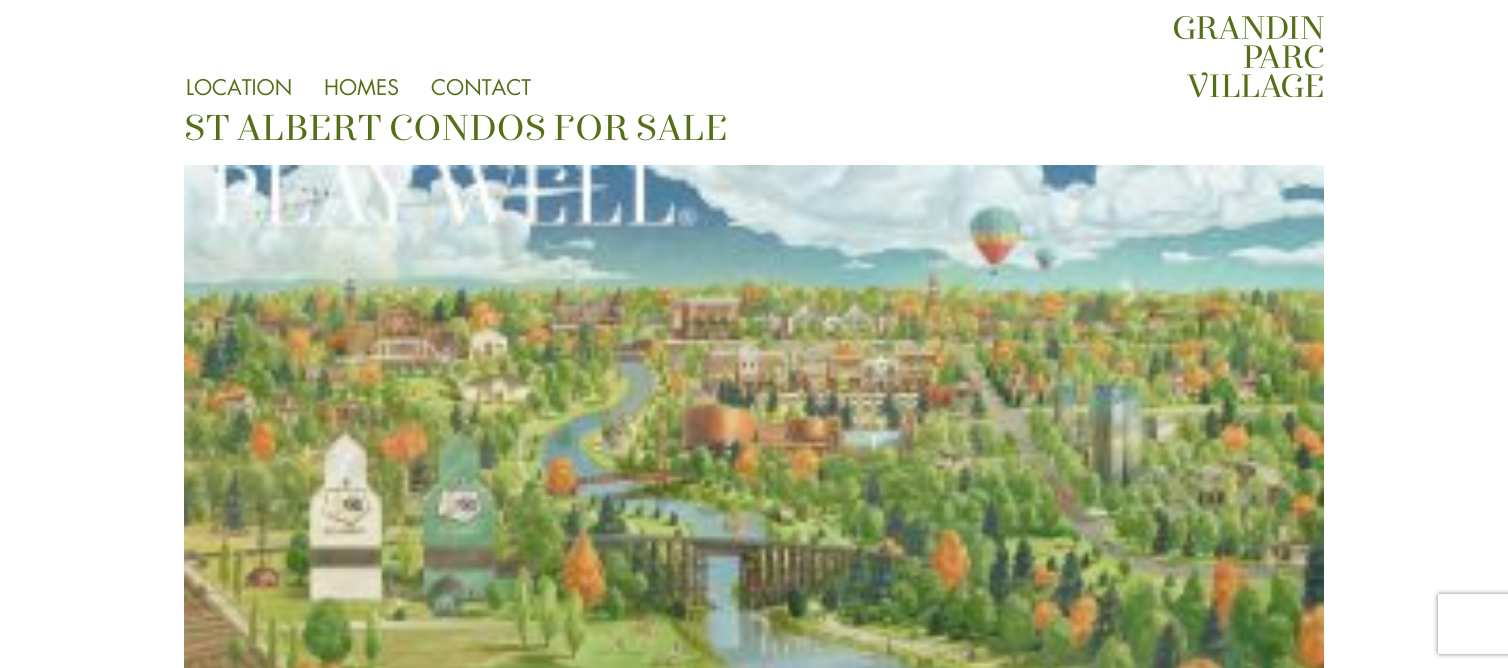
#include <cairo.h>
#include <math.h>
#include <stddef.h>

static cairo_t *ctx;

static void use_color(int r, int g, int b) {
    cairo_set_source_rgb(ctx, r / 255.0, g / 255.0, b / 255.0);
}

static void round_rect(double x, double y, double w, double h, double r) {
    cairo_new_sub_path(ctx);
    cairo_arc(ctx, x + w - r, y + h - r, r, 0, M_PI / 2);
    cairo_arc(ctx, x + r, y + h - r, r, M_PI / 2, M_PI);
    cairo_arc(ctx, x + r, y + r, r, M_PI, 1.5 * M_PI);
    cairo_arc(ctx, x + w - r, y + r, r, 1.5 * M_PI, 2 * M_PI);
    cairo_close_path(ctx);
}

static void shadow(double x, double y, double w, double h, double r, double blur, double alpha) {
    cairo_push_group_with_content(ctx, CAIRO_CONTENT_ALPHA);
    cairo_set_operator(ctx, CAIRO_OPERATOR_SOURCE);
    for (int i = 15; i >= -15 && fmin(w, h) + blur * i / 3 > 0; i -= 2) {
        double e = blur * i / 6;
        cairo_set_source_rgba(ctx, 0, 0, 0, alpha * erfc((i - 1) / 8.5) / 2);
        round_rect(x - e, y - e, w + 2 * e, h + 2 * e, fmax(0, fmin(r + e + blur * .6, fmin(w, h) / 2 + e)));
        cairo_fill(ctx);
    }
    cairo_pattern_t *soft = cairo_pop_group(ctx);
    cairo_mask(ctx, soft);
    cairo_pattern_destroy(soft);
}

static void picture(const char *path, double x, double y, double w, double h) {
    cairo_surface_t *image = cairo_image_surface_create_from_png(path);
    cairo_save(ctx);
    cairo_set_source_surface(ctx, image, x, y);
    cairo_rectangle(ctx, x, y, w, h);
    cairo_fill(ctx);
    cairo_restore(ctx);
    cairo_surface_destroy(image);
}

int main(void) {
    cairo_surface_t *surface = cairo_image_surface_create(CAIRO_FORMAT_RGB24, 1508, 668);
    ctx = cairo_create(surface);
    cairo_font_options_t *options = cairo_font_options_create();
    cairo_font_options_set_hint_metrics(options, CAIRO_HINT_METRICS_OFF);
    cairo_font_options_set_hint_style(options, CAIRO_HINT_STYLE_NONE);
    cairo_set_font_options(ctx, options);
    cairo_set_miter_limit(ctx, 4);
    use_color(255, 255, 255);
    cairo_paint(ctx);
    cairo_select_font_face(ctx, "Futura", CAIRO_FONT_SLANT_NORMAL, CAIRO_FONT_WEIGHT_NORMAL);
    cairo_set_font_size(ctx, 21);
    use_color(84, 112, 23);
    cairo_move_to(ctx, 186, 95);
    cairo_show_text(ctx, "LOCATION");
    cairo_move_to(ctx, 324, 95);
    cairo_show_text(ctx, "HOMES");
    cairo_move_to(ctx, 431, 95);
    cairo_show_text(ctx, "CONTACT");
    picture("img1.png", 1174, 16, 150, 81);
    cairo_select_font_face(ctx, "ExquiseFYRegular", CAIRO_FONT_SLANT_NORMAL, CAIRO_FONT_WEIGHT_NORMAL);
    cairo_set_font_size(ctx, 36);
    cairo_move_to(ctx, 184, 140);
    cairo_show_text(ctx, "ST ALBERT CONDOS FOR SALE");
    picture("img2.png", 184, 165, 1140, 503);
    cairo_save(ctx);
    cairo_set_fill_rule(ctx, CAIRO_FILL_RULE_EVEN_ODD);
    cairo_new_path(ctx);
    cairo_move_to(ctx, 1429, 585);
    cairo_line_to(ctx, 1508, 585);
    cairo_line_to(ctx, 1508, 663);
    cairo_line_to(ctx, 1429, 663);
    cairo_close_path(ctx);
    cairo_move_to(ctx, 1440, 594);
    cairo_line_to(ctx, 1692, 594);
    cairo_curve_to(ctx, 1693, 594, 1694, 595, 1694, 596);
    cairo_line_to(ctx, 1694, 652);
    cairo_curve_to(ctx, 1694, 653, 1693, 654, 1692, 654);
    cairo_line_to(ctx, 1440, 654);
    cairo_curve_to(ctx, 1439, 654, 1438, 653, 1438, 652);
    cairo_line_to(ctx, 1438, 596);
    cairo_curve_to(ctx, 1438, 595, 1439, 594, 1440, 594);
    cairo_close_path(ctx);
    cairo_clip(ctx);
    use_color(128, 128, 128);
    shadow(1438, 594, 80, 60, 2, 2.5, 1);
    cairo_restore(ctx);
    cairo_surface_write_to_png(surface, "result.png");
    cairo_font_options_destroy(options);
    cairo_destroy(ctx);
    cairo_surface_destroy(surface);
    return 0;
}
